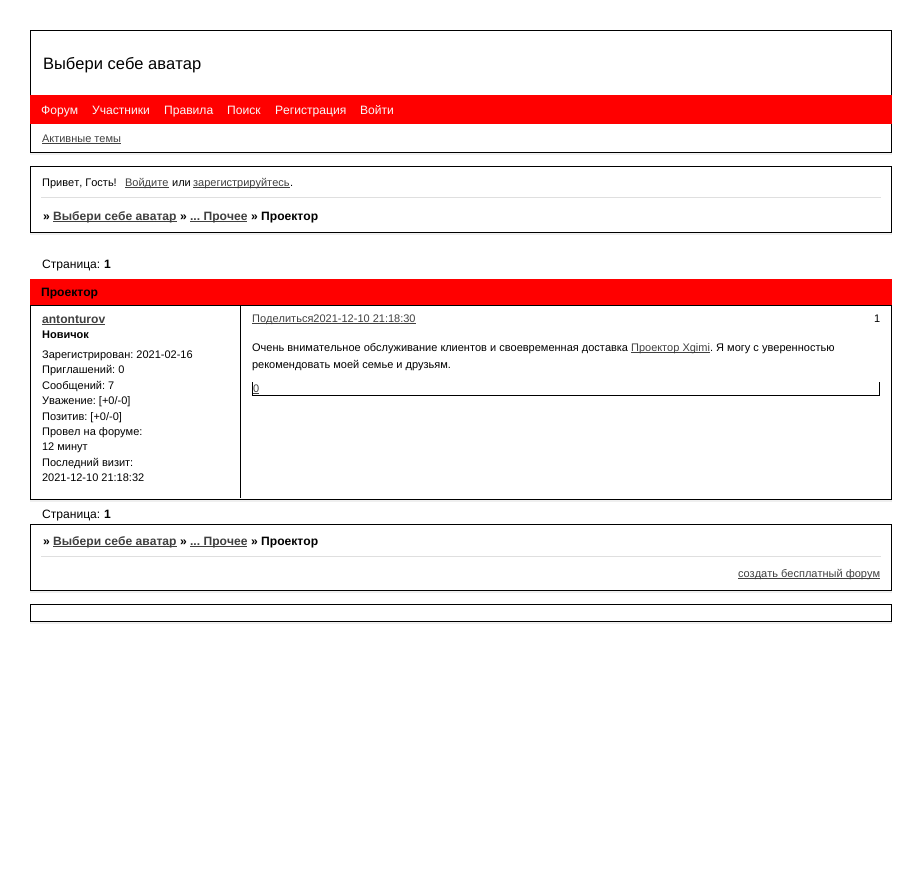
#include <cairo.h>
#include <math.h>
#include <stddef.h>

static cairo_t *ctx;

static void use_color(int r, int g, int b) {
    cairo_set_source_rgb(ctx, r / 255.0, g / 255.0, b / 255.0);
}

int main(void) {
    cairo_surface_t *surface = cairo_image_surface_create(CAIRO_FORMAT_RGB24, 922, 888);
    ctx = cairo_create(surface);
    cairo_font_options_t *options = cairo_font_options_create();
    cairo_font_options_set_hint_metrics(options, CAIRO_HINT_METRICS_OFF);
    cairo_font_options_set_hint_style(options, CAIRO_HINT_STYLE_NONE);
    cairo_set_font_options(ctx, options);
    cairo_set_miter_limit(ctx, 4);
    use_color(255, 255, 255);
    cairo_paint(ctx);
    use_color(0, 0, 0);
    cairo_rectangle(ctx, 30, 30, 862, 1);
    cairo_fill(ctx);
    cairo_rectangle(ctx, 891, 30, 1, 65);
    cairo_fill(ctx);
    cairo_rectangle(ctx, 30, 30, 1, 65);
    cairo_fill(ctx);
    cairo_select_font_face(ctx, "Liberation Sans", CAIRO_FONT_SLANT_NORMAL, CAIRO_FONT_WEIGHT_NORMAL);
    cairo_set_font_size(ctx, 16.5);
    cairo_move_to(ctx, 43, 69);
    cairo_show_text(ctx, "Выбери себе аватар");
    use_color(255, 0, 0);
    cairo_rectangle(ctx, 30, 95, 862, 29);
    cairo_fill(ctx);
    cairo_set_font_size(ctx, 12.1);
    use_color(248, 248, 248);
    cairo_move_to(ctx, 41, 114);
    cairo_show_text(ctx, "Форум");
    cairo_move_to(ctx, 92, 114);
    cairo_show_text(ctx, "Участники");
    cairo_move_to(ctx, 164, 114);
    cairo_show_text(ctx, "Правила");
    cairo_move_to(ctx, 227, 114);
    cairo_show_text(ctx, "Поиск");
    cairo_move_to(ctx, 275, 114);
    cairo_show_text(ctx, "Регистрация");
    cairo_move_to(ctx, 360, 114);
    cairo_show_text(ctx, "Войти");
    use_color(239, 239, 239);
    cairo_rectangle(ctx, 30, 153, 862, 2);
    cairo_fill(ctx);
    use_color(0, 0, 0);
    cairo_rectangle(ctx, 891, 124, 1, 29);
    cairo_fill(ctx);
    cairo_rectangle(ctx, 30, 152, 862, 1);
    cairo_fill(ctx);
    cairo_rectangle(ctx, 30, 124, 1, 29);
    cairo_fill(ctx);
    cairo_set_font_size(ctx, 11);
    use_color(64, 64, 64);
    cairo_move_to(ctx, 42, 142);
    cairo_show_text(ctx, "Активные темы");
    cairo_rectangle(ctx, 42, 143, 79, 1);
    cairo_fill(ctx);
    use_color(0, 0, 0);
    cairo_rectangle(ctx, 30, 166, 862, 1);
    cairo_fill(ctx);
    cairo_rectangle(ctx, 891, 166, 1, 67);
    cairo_fill(ctx);
    cairo_rectangle(ctx, 30, 166, 1, 33);
    cairo_fill(ctx);
    cairo_move_to(ctx, 42, 186);
    cairo_show_text(ctx, "Привет, Гость!");
    use_color(64, 64, 64);
    cairo_rectangle(ctx, 125, 187, 44, 1);
    cairo_fill(ctx);
    cairo_move_to(ctx, 125, 186);
    cairo_show_text(ctx, "Войдите");
    use_color(0, 0, 0);
    cairo_move_to(ctx, 172, 186);
    cairo_show_text(ctx, "или");
    use_color(64, 64, 64);
    cairo_rectangle(ctx, 193, 187, 97, 1);
    cairo_fill(ctx);
    cairo_move_to(ctx, 193, 186);
    cairo_show_text(ctx, "зарегистрируйтесь");
    use_color(0, 0, 0);
    cairo_move_to(ctx, 290, 186);
    cairo_show_text(ctx, ".");
    use_color(223, 223, 223);
    cairo_rectangle(ctx, 41, 197, 840, 1);
    cairo_fill(ctx);
    use_color(239, 239, 239);
    cairo_rectangle(ctx, 30, 233, 862, 2);
    cairo_fill(ctx);
    use_color(0, 0, 0);
    cairo_rectangle(ctx, 30, 232, 862, 1);
    cairo_fill(ctx);
    cairo_rectangle(ctx, 30, 197, 1, 36);
    cairo_fill(ctx);
    cairo_select_font_face(ctx, "Liberation Sans", CAIRO_FONT_SLANT_NORMAL, CAIRO_FONT_WEIGHT_BOLD);
    cairo_set_font_size(ctx, 12.1);
    cairo_move_to(ctx, 43, 220);
    cairo_show_text(ctx, "»");
    use_color(64, 64, 64);
    cairo_rectangle(ctx, 53, 221, 124, 1);
    cairo_fill(ctx);
    cairo_move_to(ctx, 53, 220);
    cairo_show_text(ctx, "Выбери себе аватар");
    use_color(0, 0, 0);
    cairo_move_to(ctx, 180, 220);
    cairo_show_text(ctx, "»");
    use_color(64, 64, 64);
    cairo_rectangle(ctx, 190, 221, 57, 1);
    cairo_fill(ctx);
    cairo_move_to(ctx, 190, 220);
    cairo_show_text(ctx, "... Прочее");
    use_color(0, 0, 0);
    cairo_move_to(ctx, 251, 220);
    cairo_show_text(ctx, "» Проектор");
    cairo_select_font_face(ctx, "Liberation Sans", CAIRO_FONT_SLANT_NORMAL, CAIRO_FONT_WEIGHT_NORMAL);
    cairo_move_to(ctx, 42, 268);
    cairo_show_text(ctx, "Страница:");
    cairo_select_font_face(ctx, "Liberation Sans", CAIRO_FONT_SLANT_NORMAL, CAIRO_FONT_WEIGHT_BOLD);
    cairo_move_to(ctx, 104, 268);
    cairo_show_text(ctx, "1");
    use_color(255, 0, 0);
    cairo_rectangle(ctx, 30, 279, 862, 26);
    cairo_fill(ctx);
    use_color(0, 0, 0);
    cairo_move_to(ctx, 41, 296);
    cairo_show_text(ctx, "Проектор");
    use_color(239, 239, 239);
    cairo_rectangle(ctx, 30, 500, 862, 2);
    cairo_fill(ctx);
    use_color(0, 0, 0);
    cairo_rectangle(ctx, 30, 305, 862, 1);
    cairo_fill(ctx);
    cairo_rectangle(ctx, 891, 305, 1, 195);
    cairo_fill(ctx);
    cairo_rectangle(ctx, 30, 305, 1, 24);
    cairo_fill(ctx);
    cairo_rectangle(ctx, 240, 306, 1, 23);
    cairo_fill(ctx);
    use_color(64, 64, 64);
    cairo_rectangle(ctx, 252, 323, 164, 1);
    cairo_fill(ctx);
    cairo_select_font_face(ctx, "Liberation Sans", CAIRO_FONT_SLANT_NORMAL, CAIRO_FONT_WEIGHT_NORMAL);
    cairo_set_font_size(ctx, 11);
    cairo_move_to(ctx, 252, 322);
    cairo_show_text(ctx, "Поделиться2021-12-10 21:18:30");
    use_color(0, 0, 0);
    cairo_move_to(ctx, 874, 322);
    cairo_show_text(ctx, "1");
    use_color(255, 255, 255);
    cairo_rectangle(ctx, 240, 328, 1, 1);
    cairo_fill(ctx);
    use_color(0, 0, 0);
    cairo_rectangle(ctx, 30, 499, 862, 1);
    cairo_fill(ctx);
    cairo_rectangle(ctx, 30, 328, 1, 172);
    cairo_fill(ctx);
    cairo_select_font_face(ctx, "Liberation Sans", CAIRO_FONT_SLANT_NORMAL, CAIRO_FONT_WEIGHT_BOLD);
    cairo_set_font_size(ctx, 12.1);
    use_color(64, 64, 64);
    cairo_move_to(ctx, 42, 323);
    cairo_show_text(ctx, "antonturov");
    cairo_rectangle(ctx, 42, 324, 63, 1);
    cairo_fill(ctx);
    cairo_set_font_size(ctx, 11);
    use_color(0, 0, 0);
    cairo_move_to(ctx, 42, 338);
    cairo_show_text(ctx, "Новичок");
    cairo_select_font_face(ctx, "Liberation Sans", CAIRO_FONT_SLANT_NORMAL, CAIRO_FONT_WEIGHT_NORMAL);
    cairo_move_to(ctx, 42, 358);
    cairo_show_text(ctx, "Зарегистрирован: 2021-02-16");
    cairo_move_to(ctx, 42, 373);
    cairo_show_text(ctx, "Приглашений: 0");
    cairo_move_to(ctx, 42, 389);
    cairo_show_text(ctx, "Сообщений: 7");
    cairo_move_to(ctx, 42, 404);
    cairo_show_text(ctx, "Уважение: [+0/-0]");
    cairo_move_to(ctx, 42, 420);
    cairo_show_text(ctx, "Позитив: [+0/-0]");
    cairo_move_to(ctx, 42, 435);
    cairo_show_text(ctx, "Провел на форуме:");
    cairo_move_to(ctx, 42, 450);
    cairo_show_text(ctx, "12 минут");
    cairo_move_to(ctx, 42, 466);
    cairo_show_text(ctx, "Последний визит:");
    cairo_move_to(ctx, 42, 481);
    cairo_show_text(ctx, "2021-12-10 21:18:32");
    cairo_rectangle(ctx, 240, 328, 1, 170);
    cairo_fill(ctx);
    cairo_move_to(ctx, 252, 351);
    cairo_show_text(ctx, "Очень внимательное обслуживание клиентов и своевременная доставка");
    use_color(64, 64, 64);
    cairo_rectangle(ctx, 631, 352, 79, 1);
    cairo_fill(ctx);
    cairo_move_to(ctx, 631, 351);
    cairo_show_text(ctx, "Проектор Xgimi");
    use_color(0, 0, 0);
    cairo_move_to(ctx, 710, 351);
    cairo_show_text(ctx, ". Я могу с уверенностью");
    cairo_move_to(ctx, 252, 368);
    cairo_show_text(ctx, "рекомендовать моей семье и друзьям.");
    cairo_rectangle(ctx, 879, 382, 1, 14);
    cairo_fill(ctx);
    cairo_rectangle(ctx, 252, 395, 628, 1);
    cairo_fill(ctx);
    cairo_rectangle(ctx, 252, 382, 1, 14);
    cairo_fill(ctx);
    use_color(64, 64, 64);
    cairo_move_to(ctx, 253, 392);
    cairo_show_text(ctx, "0");
    cairo_rectangle(ctx, 253, 393, 6, 1);
    cairo_fill(ctx);
    cairo_set_font_size(ctx, 12.1);
    use_color(0, 0, 0);
    cairo_move_to(ctx, 42, 518);
    cairo_show_text(ctx, "Страница:");
    cairo_select_font_face(ctx, "Liberation Sans", CAIRO_FONT_SLANT_NORMAL, CAIRO_FONT_WEIGHT_BOLD);
    cairo_move_to(ctx, 104, 518);
    cairo_show_text(ctx, "1");
    cairo_rectangle(ctx, 30, 524, 862, 1);
    cairo_fill(ctx);
    cairo_rectangle(ctx, 891, 556, 1, 35);
    cairo_fill(ctx);
    cairo_rectangle(ctx, 891, 524, 1, 34);
    cairo_fill(ctx);
    cairo_rectangle(ctx, 30, 590, 862, 1);
    cairo_fill(ctx);
    cairo_rectangle(ctx, 30, 556, 1, 35);
    cairo_fill(ctx);
    cairo_rectangle(ctx, 30, 524, 1, 34);
    cairo_fill(ctx);
    cairo_move_to(ctx, 43, 545);
    cairo_show_text(ctx, "»");
    use_color(64, 64, 64);
    cairo_rectangle(ctx, 53, 546, 124, 1);
    cairo_fill(ctx);
    cairo_move_to(ctx, 53, 545);
    cairo_show_text(ctx, "Выбери себе аватар");
    use_color(0, 0, 0);
    cairo_move_to(ctx, 180, 545);
    cairo_show_text(ctx, "»");
    use_color(64, 64, 64);
    cairo_rectangle(ctx, 190, 546, 57, 1);
    cairo_fill(ctx);
    cairo_move_to(ctx, 190, 545);
    cairo_show_text(ctx, "... Прочее");
    use_color(0, 0, 0);
    cairo_move_to(ctx, 251, 545);
    cairo_show_text(ctx, "» Проектор");
    use_color(223, 223, 223);
    cairo_rectangle(ctx, 41, 556, 840, 1);
    cairo_fill(ctx);
    use_color(239, 239, 239);
    cairo_rectangle(ctx, 30, 591, 862, 2);
    cairo_fill(ctx);
    use_color(64, 64, 64);
    cairo_rectangle(ctx, 738, 578, 142, 1);
    cairo_fill(ctx);
    cairo_select_font_face(ctx, "Liberation Sans", CAIRO_FONT_SLANT_NORMAL, CAIRO_FONT_WEIGHT_NORMAL);
    cairo_set_font_size(ctx, 11);
    cairo_move_to(ctx, 738, 577);
    cairo_show_text(ctx, "создать бесплатный форум");
    use_color(239, 239, 239);
    cairo_rectangle(ctx, 30, 622, 862, 2);
    cairo_fill(ctx);
    cairo_rectangle(ctx, 30.5, 604.5, 861, 17);
    use_color(0, 0, 0);
    cairo_set_line_width(ctx, 1);
    cairo_stroke(ctx);
    cairo_surface_write_to_png(surface, "result.png");
    cairo_font_options_destroy(options);
    cairo_destroy(ctx);
    cairo_surface_destroy(surface);
    return 0;
}
